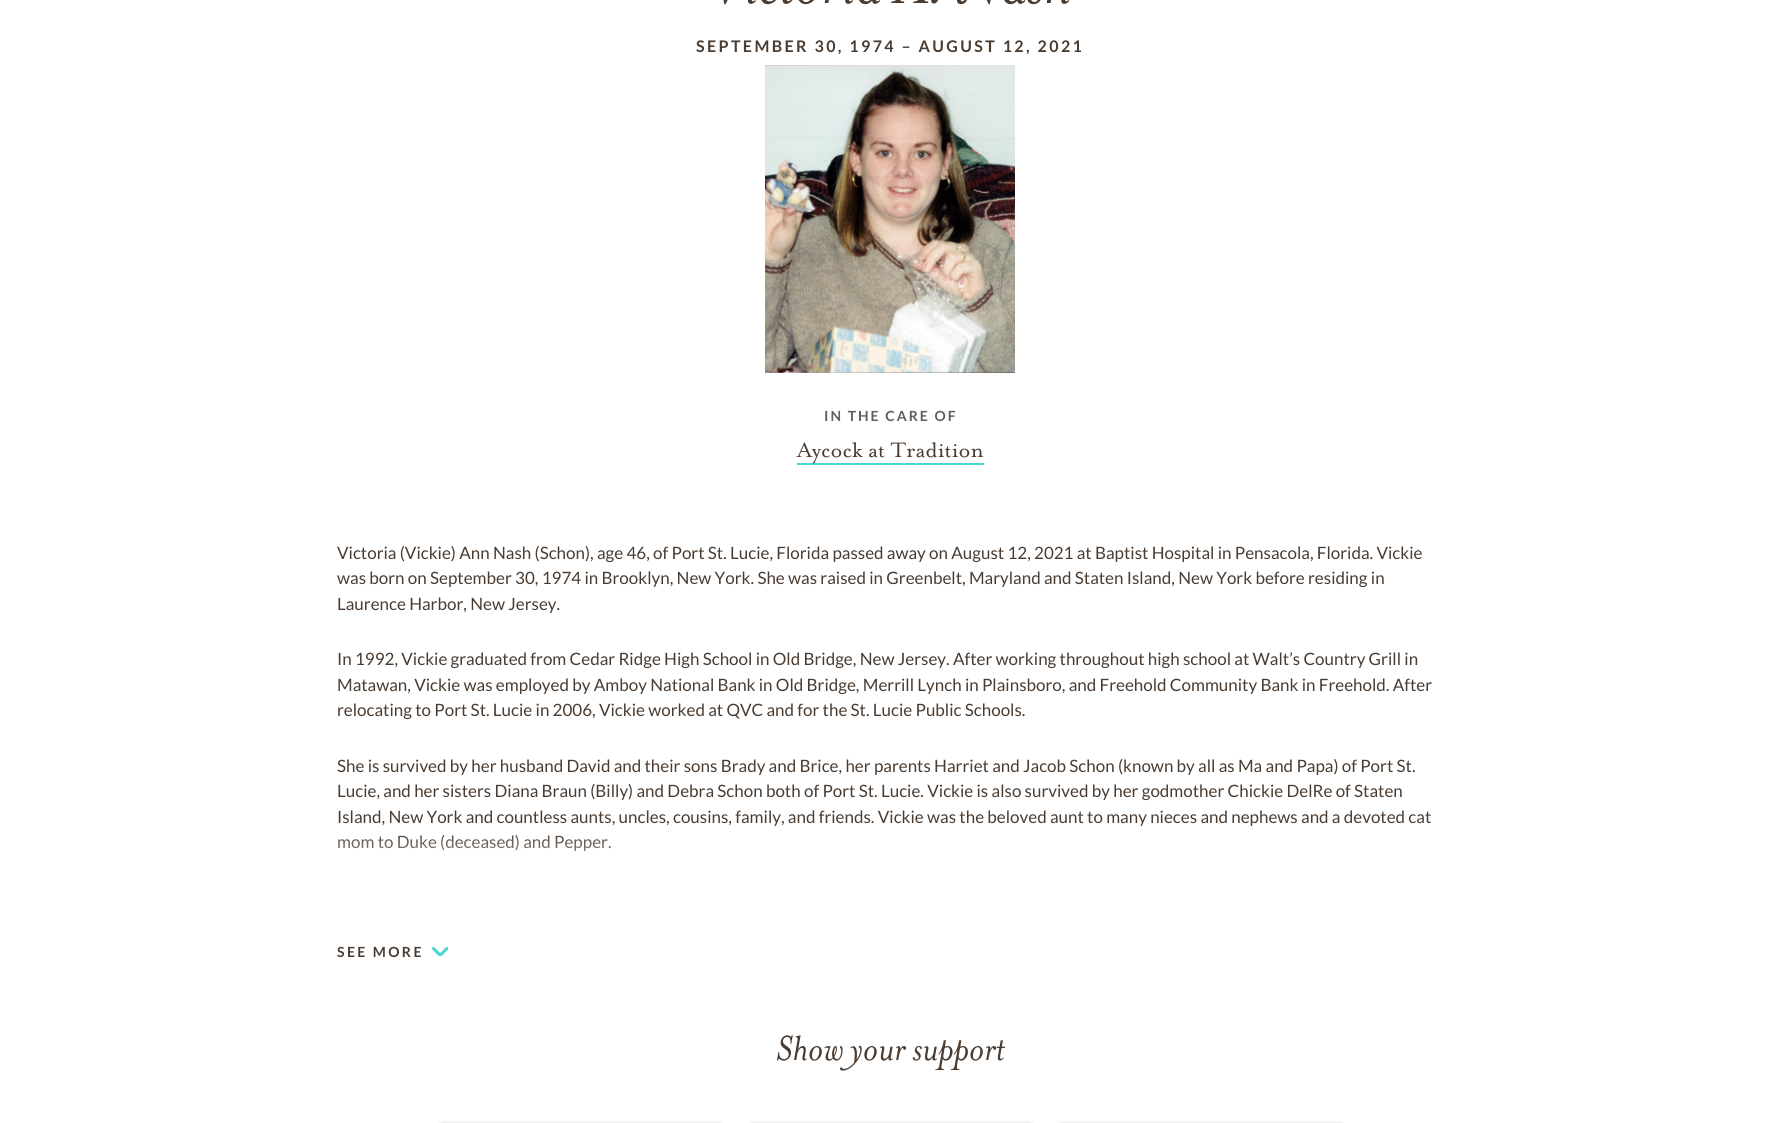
#include <cairo.h>
#include <math.h>
#include <stddef.h>

static cairo_t *ctx;

static void use_color(int r, int g, int b) {
    cairo_set_source_rgb(ctx, r / 255.0, g / 255.0, b / 255.0);
}

static void spaced_text(double x, double y, const char *s, double letter, double word) {
    cairo_move_to(ctx, x, y);
    while (*s) {
        char ch[5] = {0};
        int n = 0;
        do ch[n++] = *s++; while ((*s & 0xC0) == 0x80);
        cairo_show_text(ctx, ch);
        cairo_rel_move_to(ctx, letter + word * (*ch == ' '), 0);
    }
}

static void round_rect(double x, double y, double w, double h, double r) {
    cairo_new_sub_path(ctx);
    cairo_arc(ctx, x + w - r, y + h - r, r, 0, M_PI / 2);
    cairo_arc(ctx, x + r, y + h - r, r, M_PI / 2, M_PI);
    cairo_arc(ctx, x + r, y + r, r, M_PI, 1.5 * M_PI);
    cairo_arc(ctx, x + w - r, y + r, r, 1.5 * M_PI, 2 * M_PI);
    cairo_close_path(ctx);
}

static void shadow(double x, double y, double w, double h, double r, double blur, double alpha) {
    cairo_push_group_with_content(ctx, CAIRO_CONTENT_ALPHA);
    cairo_set_operator(ctx, CAIRO_OPERATOR_SOURCE);
    for (int i = 15; i >= -15 && fmin(w, h) + blur * i / 3 > 0; i -= 2) {
        double e = blur * i / 6;
        cairo_set_source_rgba(ctx, 0, 0, 0, alpha * erfc((i - 1) / 8.5) / 2);
        round_rect(x - e, y - e, w + 2 * e, h + 2 * e, fmax(0, fmin(r + e + blur * .6, fmin(w, h) / 2 + e)));
        cairo_fill(ctx);
    }
    cairo_pattern_t *soft = cairo_pop_group(ctx);
    cairo_mask(ctx, soft);
    cairo_pattern_destroy(soft);
}

static void picture(const char *path, double x, double y, double w, double h) {
    cairo_surface_t *image = cairo_image_surface_create_from_png(path);
    cairo_save(ctx);
    cairo_set_source_surface(ctx, image, x, y);
    cairo_rectangle(ctx, x, y, w, h);
    cairo_fill(ctx);
    cairo_restore(ctx);
    cairo_surface_destroy(image);
}

int main(void) {
    cairo_surface_t *surface = cairo_image_surface_create(CAIRO_FORMAT_RGB24, 1781, 1123);
    ctx = cairo_create(surface);
    cairo_font_options_t *options = cairo_font_options_create();
    cairo_font_options_set_hint_metrics(options, CAIRO_HINT_METRICS_OFF);
    cairo_font_options_set_hint_style(options, CAIRO_HINT_STYLE_NONE);
    cairo_set_font_options(ctx, options);
    cairo_set_miter_limit(ctx, 4);
    cairo_pattern_t *gradient;
    use_color(255, 255, 255);
    cairo_paint(ctx);
    picture("img1.png", 723, 0, 346, 5);
    cairo_select_font_face(ctx, "Lato", CAIRO_FONT_SLANT_NORMAL, CAIRO_FONT_WEIGHT_BOLD);
    cairo_set_font_size(ctx, 16);
    use_color(74, 60, 49);
    spaced_text(696, 52, "SEPTEMBER 30, 1974 – AUGUST 12, 2021", 2.4, 0);
    picture("img2.png", 765, 65, 250, 308);
    cairo_set_font_size(ctx, 14);
    use_color(96, 95, 94);
    spaced_text(824, 421, "IN THE CARE OF", 2, 0);
    use_color(71, 213, 205);
    cairo_rectangle(ctx, 797, 463, 187, 2);
    cairo_fill(ctx);
    picture("img3.png", 796, 442, 188, 22);
    cairo_select_font_face(ctx, "Lato", CAIRO_FONT_SLANT_NORMAL, CAIRO_FONT_WEIGHT_NORMAL);
    cairo_set_font_size(ctx, 17);
    use_color(74, 60, 49);
    cairo_move_to(ctx, 337, 559);
    cairo_show_text(ctx, "Victoria (Vickie) Ann Nash (Schon), age 46, of Port St. Lucie, Florida passed away on August 12, 2021 at Baptist Hospital in Pensacola, Florida. Vickie");
    cairo_move_to(ctx, 337, 584);
    cairo_show_text(ctx, "was born on September 30, 1974 in Brooklyn, New York. She was raised in Greenbelt, Maryland and Staten Island, New York before residing in");
    cairo_move_to(ctx, 337, 610);
    cairo_show_text(ctx, "Laurence Harbor, New Jersey.");
    cairo_move_to(ctx, 337, 665);
    cairo_show_text(ctx, "In 1992, Vickie graduated from Cedar Ridge High School in Old Bridge, New Jersey. After working throughout high school at Walt’s Country Grill in");
    cairo_move_to(ctx, 337, 691);
    cairo_show_text(ctx, "Matawan, Vickie was employed by Amboy National Bank in Old Bridge, Merrill Lynch in Plainsboro, and Freehold Community Bank in Freehold. After");
    cairo_move_to(ctx, 337, 716);
    cairo_show_text(ctx, "relocating to Port St. Lucie in 2006, Vickie worked at QVC and for the St. Lucie Public Schools.");
    cairo_move_to(ctx, 337, 772);
    cairo_show_text(ctx, "She is survived by her husband David and their sons Brady and Brice, her parents Harriet and Jacob Schon (known by all as Ma and Papa) of Port St.");
    cairo_move_to(ctx, 337, 797);
    cairo_show_text(ctx, "Lucie, and her sisters Diana Braun (Billy) and Debra Schon both of Port St. Lucie. Vickie is also survived by her godmother Chickie DelRe of Staten");
    cairo_move_to(ctx, 337, 823);
    cairo_show_text(ctx, "Island, New York and countless aunts, uncles, cousins, family, and friends. Vickie was the beloved aunt to many nieces and nephews and a devoted cat");
    cairo_move_to(ctx, 337, 848);
    cairo_show_text(ctx, "mom to Duke (deceased) and Pepper.");
    gradient = cairo_pattern_create_linear(891, 829, 891, 973);
    cairo_pattern_add_color_stop_rgba(gradient, 0, 1, 1, 1, 0);
    cairo_pattern_add_color_stop_rgba(gradient, 0.5, 1, 1, 1, 1);
    cairo_pattern_add_color_stop_rgba(gradient, 1, 1, 1, 1, 1);
    cairo_set_source(ctx, gradient);
    cairo_pattern_destroy(gradient);
    cairo_rectangle(ctx, 337, 835, 274, 16);
    cairo_fill(ctx);
    cairo_select_font_face(ctx, "Lato", CAIRO_FONT_SLANT_NORMAL, CAIRO_FONT_WEIGHT_BOLD);
    cairo_set_font_size(ctx, 14);
    use_color(74, 60, 49);
    spaced_text(337, 957, "SEE MORE", 2.4, 0);
    picture("img4.png", 432, 947, 16, 9);
    picture("img5.png", 777, 1035, 228, 36);
    use_color(0, 0, 0);
    shadow(441, 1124, 280, 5, 0, 2, 0.29);
    shadow(751, 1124, 280, 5, 0, 2, 0.29);
    shadow(1061, 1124, 280, 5, 0, 2, 0.29);
    cairo_surface_write_to_png(surface, "result.png");
    cairo_font_options_destroy(options);
    cairo_destroy(ctx);
    cairo_surface_destroy(surface);
    return 0;
}
